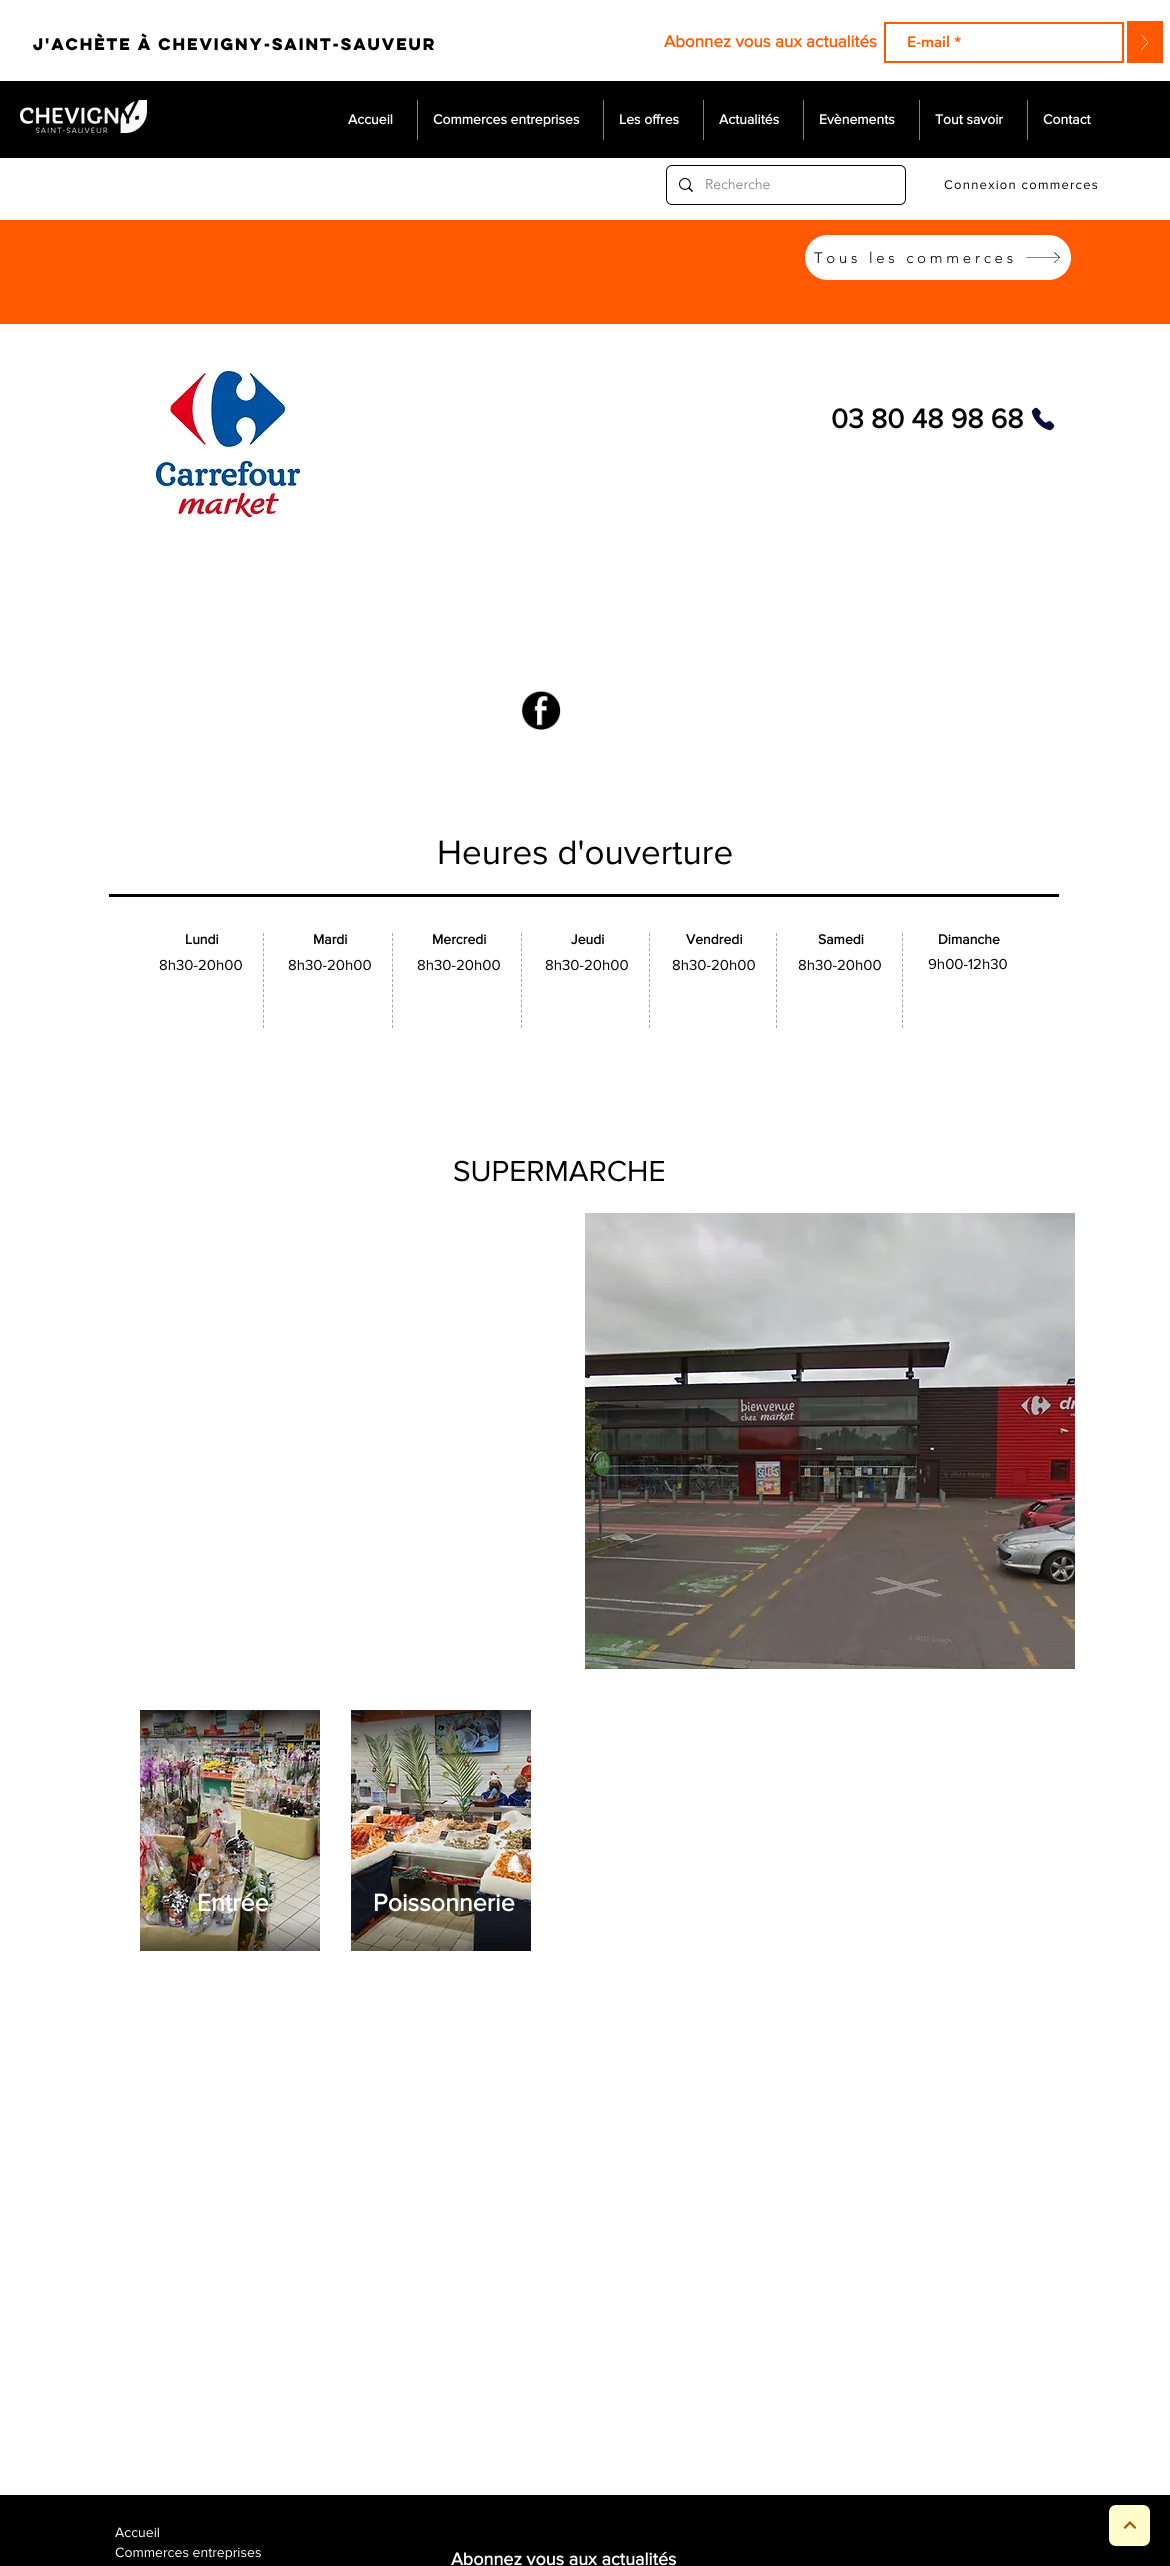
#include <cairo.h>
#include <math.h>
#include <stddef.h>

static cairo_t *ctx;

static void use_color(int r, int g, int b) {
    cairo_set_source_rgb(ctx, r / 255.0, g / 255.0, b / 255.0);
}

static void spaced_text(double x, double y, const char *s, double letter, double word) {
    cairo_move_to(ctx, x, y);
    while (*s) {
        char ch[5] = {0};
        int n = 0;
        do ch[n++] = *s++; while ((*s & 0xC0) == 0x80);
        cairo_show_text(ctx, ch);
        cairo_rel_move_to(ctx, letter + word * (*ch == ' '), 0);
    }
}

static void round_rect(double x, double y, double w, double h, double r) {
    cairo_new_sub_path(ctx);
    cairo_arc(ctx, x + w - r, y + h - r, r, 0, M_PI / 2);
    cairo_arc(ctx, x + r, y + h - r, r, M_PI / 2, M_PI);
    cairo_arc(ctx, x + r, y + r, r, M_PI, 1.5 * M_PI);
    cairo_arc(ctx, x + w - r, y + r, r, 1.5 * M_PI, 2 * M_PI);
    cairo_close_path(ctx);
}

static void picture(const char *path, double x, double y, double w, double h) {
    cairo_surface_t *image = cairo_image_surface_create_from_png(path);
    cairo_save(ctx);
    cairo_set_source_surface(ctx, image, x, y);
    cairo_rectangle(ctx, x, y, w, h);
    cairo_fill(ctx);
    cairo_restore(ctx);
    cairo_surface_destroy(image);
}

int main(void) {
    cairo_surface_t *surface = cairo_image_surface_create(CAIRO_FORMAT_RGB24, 1170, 2566);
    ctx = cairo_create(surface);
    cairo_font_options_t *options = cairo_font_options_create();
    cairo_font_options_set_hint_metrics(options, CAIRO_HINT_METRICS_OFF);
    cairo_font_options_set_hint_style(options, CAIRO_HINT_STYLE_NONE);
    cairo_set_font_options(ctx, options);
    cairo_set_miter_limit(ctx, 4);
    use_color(255, 255, 255);
    cairo_paint(ctx);
    cairo_select_font_face(ctx, "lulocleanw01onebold", CAIRO_FONT_SLANT_NORMAL, CAIRO_FONT_WEIGHT_BOLD);
    cairo_set_font_size(ctx, 15);
    use_color(0, 0, 0);
    spaced_text(33, 50, "J'achète à Chevigny-Saint-Sauveur", -1.5, 0);
    cairo_select_font_face(ctx, "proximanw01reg", CAIRO_FONT_SLANT_NORMAL, CAIRO_FONT_WEIGHT_BOLD);
    cairo_set_font_size(ctx, 17);
    use_color(255, 89, 3);
    cairo_move_to(ctx, 664, 47);
    cairo_show_text(ctx, "Abonnez vous aux actualités");
    cairo_rectangle(ctx, 885, 23, 238, 39);
    cairo_stroke(ctx);
    cairo_select_font_face(ctx, "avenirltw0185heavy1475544 Black", CAIRO_FONT_SLANT_NORMAL, CAIRO_FONT_WEIGHT_NORMAL);
    cairo_set_font_size(ctx, 15);
    cairo_move_to(ctx, 907, 47);
    cairo_show_text(ctx, "E-mail *");
    cairo_rectangle(ctx, 1127, 21, 36, 42);
    cairo_fill(ctx);
    picture("img1.png", 1141, 34, 8, 16);
    use_color(0, 0, 0);
    cairo_rectangle(ctx, 0, 81, 1170, 77);
    cairo_fill(ctx);
    picture("img2.png", 20, 100, 127, 33);
    cairo_select_font_face(ctx, "proximanw01reg", CAIRO_FONT_SLANT_NORMAL, CAIRO_FONT_WEIGHT_BOLD);
    cairo_set_font_size(ctx, 14);
    use_color(255, 255, 255);
    cairo_move_to(ctx, 348, 124);
    cairo_show_text(ctx, "Accueil");
    use_color(255, 89, 3);
    cairo_rectangle(ctx, 417, 100, 1, 40);
    cairo_fill(ctx);
    use_color(255, 255, 255);
    cairo_move_to(ctx, 433, 124);
    cairo_show_text(ctx, "Commerces entreprises");
    use_color(255, 89, 3);
    cairo_rectangle(ctx, 603, 100, 1, 40);
    cairo_fill(ctx);
    use_color(255, 255, 255);
    cairo_move_to(ctx, 619, 124);
    cairo_show_text(ctx, "Les offres");
    use_color(255, 89, 3);
    cairo_rectangle(ctx, 703, 100, 1, 40);
    cairo_fill(ctx);
    use_color(255, 255, 255);
    cairo_move_to(ctx, 719, 124);
    cairo_show_text(ctx, "Actualités");
    use_color(255, 89, 3);
    cairo_rectangle(ctx, 803, 100, 1, 40);
    cairo_fill(ctx);
    use_color(255, 255, 255);
    cairo_move_to(ctx, 819, 124);
    cairo_show_text(ctx, "Evènements");
    use_color(255, 89, 3);
    cairo_rectangle(ctx, 919, 100, 1, 40);
    cairo_fill(ctx);
    use_color(255, 255, 255);
    cairo_move_to(ctx, 935, 124);
    cairo_show_text(ctx, "Tout savoir");
    use_color(255, 89, 3);
    cairo_rectangle(ctx, 1027, 100, 1, 40);
    cairo_fill(ctx);
    use_color(255, 255, 255);
    cairo_move_to(ctx, 1043, 124);
    cairo_show_text(ctx, "Contact");
    round_rect(666.5, 165.5, 239, 39, 5.5);
    use_color(0, 0, 0);
    cairo_set_line_width(ctx, 1);
    cairo_stroke(ctx);
    cairo_set_source_rgba(ctx, 1, 1, 1, 0.25);
    round_rect(667, 166, 238, 38, 5);
    cairo_fill(ctx);
    picture("img3.png", 679, 178, 14, 14);
    cairo_select_font_face(ctx, "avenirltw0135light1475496 Light", CAIRO_FONT_SLANT_NORMAL, CAIRO_FONT_WEIGHT_NORMAL);
    use_color(120, 120, 120);
    cairo_move_to(ctx, 705, 189);
    cairo_show_text(ctx, "Recherche");
    cairo_select_font_face(ctx, "proximanw01reg", CAIRO_FONT_SLANT_NORMAL, CAIRO_FONT_WEIGHT_NORMAL);
    cairo_set_font_size(ctx, 13);
    use_color(0, 0, 0);
    spaced_text(944, 189, "Connexion commerces", 1.25, 0);
    use_color(255, 89, 3);
    cairo_rectangle(ctx, 0, 220, 1170, 104);
    cairo_fill(ctx);
    use_color(255, 255, 255);
    round_rect(805, 235, 266, 45, 22.5);
    cairo_fill(ctx);
    cairo_select_font_face(ctx, "avenirltw0135light1475496 Light", CAIRO_FONT_SLANT_NORMAL, CAIRO_FONT_WEIGHT_NORMAL);
    cairo_set_font_size(ctx, 15);
    use_color(0, 0, 0);
    spaced_text(814, 263, "Tous les commerces", 3.75, 0);
    cairo_new_path(ctx);
    cairo_move_to(ctx, 1054.5, 252);
    cairo_line_to(ctx, 1054, 252.5);
    cairo_line_to(ctx, 1059, 257.5);
    cairo_line_to(ctx, 1026.5, 257.5);
    cairo_line_to(ctx, 1026.5, 258);
    cairo_line_to(ctx, 1059, 258);
    cairo_line_to(ctx, 1054, 262.5);
    cairo_line_to(ctx, 1054.5, 263);
    cairo_line_to(ctx, 1060, 257.5);
    cairo_close_path(ctx);
    cairo_fill(ctx);
    picture("img4.png", 151, 365, 152, 153);
    cairo_select_font_face(ctx, "proximanw01reg", CAIRO_FONT_SLANT_NORMAL, CAIRO_FONT_WEIGHT_BOLD);
    cairo_set_font_size(ctx, 28);
    cairo_move_to(ctx, 831, 428);
    cairo_show_text(ctx, "03 80 48 98 68");
    picture("img5.png", 1031, 407, 24, 24);
    picture("img6.png", 521, 691, 40, 39);
    cairo_select_font_face(ctx, "proximanw01reg", CAIRO_FONT_SLANT_NORMAL, CAIRO_FONT_WEIGHT_NORMAL);
    cairo_set_font_size(ctx, 35);
    cairo_move_to(ctx, 437, 864);
    cairo_show_text(ctx, "Heures d'ouverture");
    cairo_rectangle(ctx, 109, 894, 950, 3);
    cairo_fill(ctx);
    cairo_select_font_face(ctx, "proximanw01reg", CAIRO_FONT_SLANT_NORMAL, CAIRO_FONT_WEIGHT_BOLD);
    cairo_set_font_size(ctx, 14);
    cairo_move_to(ctx, 185, 944);
    cairo_show_text(ctx, "Lundi");
    cairo_new_path(ctx);
    cairo_move_to(ctx, 263.5, 1028);
    cairo_line_to(ctx, 263.5, 933);
    use_color(166, 166, 166);
    cairo_set_dash(ctx, (double[]){3, 2.11}, 2, 0);
    cairo_stroke(ctx);
    cairo_select_font_face(ctx, "proximanw01reg", CAIRO_FONT_SLANT_NORMAL, CAIRO_FONT_WEIGHT_NORMAL);
    cairo_set_font_size(ctx, 15);
    use_color(0, 0, 0);
    cairo_move_to(ctx, 159, 970);
    cairo_show_text(ctx, "8h30-20h00");
    cairo_select_font_face(ctx, "proximanw01reg", CAIRO_FONT_SLANT_NORMAL, CAIRO_FONT_WEIGHT_BOLD);
    cairo_set_font_size(ctx, 14);
    cairo_move_to(ctx, 313, 944);
    cairo_show_text(ctx, "Mardi");
    cairo_new_path(ctx);
    cairo_move_to(ctx, 392.5, 1028);
    cairo_line_to(ctx, 392.5, 933);
    use_color(166, 166, 166);
    cairo_stroke(ctx);
    cairo_select_font_face(ctx, "proximanw01reg", CAIRO_FONT_SLANT_NORMAL, CAIRO_FONT_WEIGHT_NORMAL);
    cairo_set_font_size(ctx, 15);
    use_color(0, 0, 0);
    cairo_move_to(ctx, 288, 970);
    cairo_show_text(ctx, "8h30-20h00");
    cairo_select_font_face(ctx, "proximanw01reg", CAIRO_FONT_SLANT_NORMAL, CAIRO_FONT_WEIGHT_BOLD);
    cairo_set_font_size(ctx, 14);
    cairo_move_to(ctx, 432, 944);
    cairo_show_text(ctx, "Mercredi");
    cairo_new_path(ctx);
    cairo_move_to(ctx, 521.5, 1028);
    cairo_line_to(ctx, 521.5, 933);
    use_color(166, 166, 166);
    cairo_stroke(ctx);
    cairo_select_font_face(ctx, "proximanw01reg", CAIRO_FONT_SLANT_NORMAL, CAIRO_FONT_WEIGHT_NORMAL);
    cairo_set_font_size(ctx, 15);
    use_color(0, 0, 0);
    cairo_move_to(ctx, 417, 970);
    cairo_show_text(ctx, "8h30-20h00");
    cairo_select_font_face(ctx, "proximanw01reg", CAIRO_FONT_SLANT_NORMAL, CAIRO_FONT_WEIGHT_BOLD);
    cairo_set_font_size(ctx, 14);
    cairo_move_to(ctx, 571, 944);
    cairo_show_text(ctx, "Jeudi");
    cairo_new_path(ctx);
    cairo_move_to(ctx, 649.5, 1028);
    cairo_line_to(ctx, 649.5, 933);
    use_color(166, 166, 166);
    cairo_stroke(ctx);
    cairo_select_font_face(ctx, "proximanw01reg", CAIRO_FONT_SLANT_NORMAL, CAIRO_FONT_WEIGHT_NORMAL);
    cairo_set_font_size(ctx, 15);
    use_color(0, 0, 0);
    cairo_move_to(ctx, 545, 970);
    cairo_show_text(ctx, "8h30-20h00");
    cairo_select_font_face(ctx, "proximanw01reg", CAIRO_FONT_SLANT_NORMAL, CAIRO_FONT_WEIGHT_BOLD);
    cairo_set_font_size(ctx, 14);
    cairo_move_to(ctx, 686, 944);
    cairo_show_text(ctx, "Vendredi");
    cairo_new_path(ctx);
    cairo_move_to(ctx, 776.5, 1028);
    cairo_line_to(ctx, 776.5, 933);
    use_color(166, 166, 166);
    cairo_stroke(ctx);
    cairo_select_font_face(ctx, "proximanw01reg", CAIRO_FONT_SLANT_NORMAL, CAIRO_FONT_WEIGHT_NORMAL);
    cairo_set_font_size(ctx, 15);
    use_color(0, 0, 0);
    cairo_move_to(ctx, 672, 970);
    cairo_show_text(ctx, "8h30-20h00");
    cairo_select_font_face(ctx, "proximanw01reg", CAIRO_FONT_SLANT_NORMAL, CAIRO_FONT_WEIGHT_BOLD);
    cairo_set_font_size(ctx, 14);
    cairo_move_to(ctx, 818, 944);
    cairo_show_text(ctx, "Samedi");
    cairo_new_path(ctx);
    cairo_move_to(ctx, 902.5, 1028);
    cairo_line_to(ctx, 902.5, 933);
    use_color(166, 166, 166);
    cairo_stroke(ctx);
    cairo_select_font_face(ctx, "proximanw01reg", CAIRO_FONT_SLANT_NORMAL, CAIRO_FONT_WEIGHT_NORMAL);
    cairo_set_font_size(ctx, 15);
    use_color(0, 0, 0);
    cairo_move_to(ctx, 798, 970);
    cairo_show_text(ctx, "8h30-20h00");
    cairo_select_font_face(ctx, "proximanw01reg", CAIRO_FONT_SLANT_NORMAL, CAIRO_FONT_WEIGHT_BOLD);
    cairo_set_font_size(ctx, 14);
    cairo_move_to(ctx, 938, 944);
    cairo_show_text(ctx, "Dimanche");
    cairo_select_font_face(ctx, "proximanw01reg", CAIRO_FONT_SLANT_NORMAL, CAIRO_FONT_WEIGHT_NORMAL);
    cairo_set_font_size(ctx, 15);
    cairo_move_to(ctx, 928, 969);
    cairo_show_text(ctx, "9h00-12h30");
    cairo_set_font_size(ctx, 30);
    cairo_move_to(ctx, 453, 1181);
    cairo_show_text(ctx, "SUPERMARCHE");
    picture("img7.png", 585, 1213, 490, 456);
    picture("img8.png", 140, 1710, 180, 241);
    cairo_select_font_face(ctx, "proximanw01reg", CAIRO_FONT_SLANT_NORMAL, CAIRO_FONT_WEIGHT_BOLD);
    cairo_set_font_size(ctx, 25);
    use_color(255, 255, 255);
    cairo_move_to(ctx, 197, 1911);
    cairo_show_text(ctx, "Entrée");
    picture("img9.png", 351, 1710, 180, 241);
    cairo_move_to(ctx, 373, 1911);
    cairo_show_text(ctx, "Poissonnerie");
    use_color(0, 0, 0);
    cairo_rectangle(ctx, 0, 2495, 1170, 71);
    cairo_fill(ctx);
    cairo_select_font_face(ctx, "proximanw01reg", CAIRO_FONT_SLANT_NORMAL, CAIRO_FONT_WEIGHT_NORMAL);
    cairo_set_font_size(ctx, 14);
    use_color(255, 255, 255);
    cairo_move_to(ctx, 115, 2537);
    cairo_show_text(ctx, "Accueil");
    cairo_move_to(ctx, 115, 2557);
    cairo_show_text(ctx, "Commerces entreprises");
    cairo_select_font_face(ctx, "proximanw01reg", CAIRO_FONT_SLANT_NORMAL, CAIRO_FONT_WEIGHT_BOLD);
    cairo_set_font_size(ctx, 18);
    cairo_move_to(ctx, 451, 2565);
    cairo_show_text(ctx, "Abonnez vous aux actualités");
    use_color(255, 252, 204);
    cairo_new_path(ctx);
    cairo_move_to(ctx, 1109, 2539);
    cairo_line_to(ctx, 1109, 2512);
    cairo_curve_to(ctx, 1109, 2508, 1112, 2505, 1116, 2505);
    cairo_line_to(ctx, 1143, 2505);
    cairo_curve_to(ctx, 1147, 2505, 1150, 2508, 1150, 2512);
    cairo_line_to(ctx, 1150, 2539);
    cairo_curve_to(ctx, 1150, 2543, 1147, 2546, 1143, 2546);
    cairo_line_to(ctx, 1116, 2546);
    cairo_curve_to(ctx, 1112, 2546, 1109, 2543, 1109, 2539);
    cairo_close_path(ctx);
    cairo_fill(ctx);
    picture("img10.png", 1123, 2521, 14, 8);
    cairo_surface_write_to_png(surface, "result.png");
    cairo_font_options_destroy(options);
    cairo_destroy(ctx);
    cairo_surface_destroy(surface);
    return 0;
}
